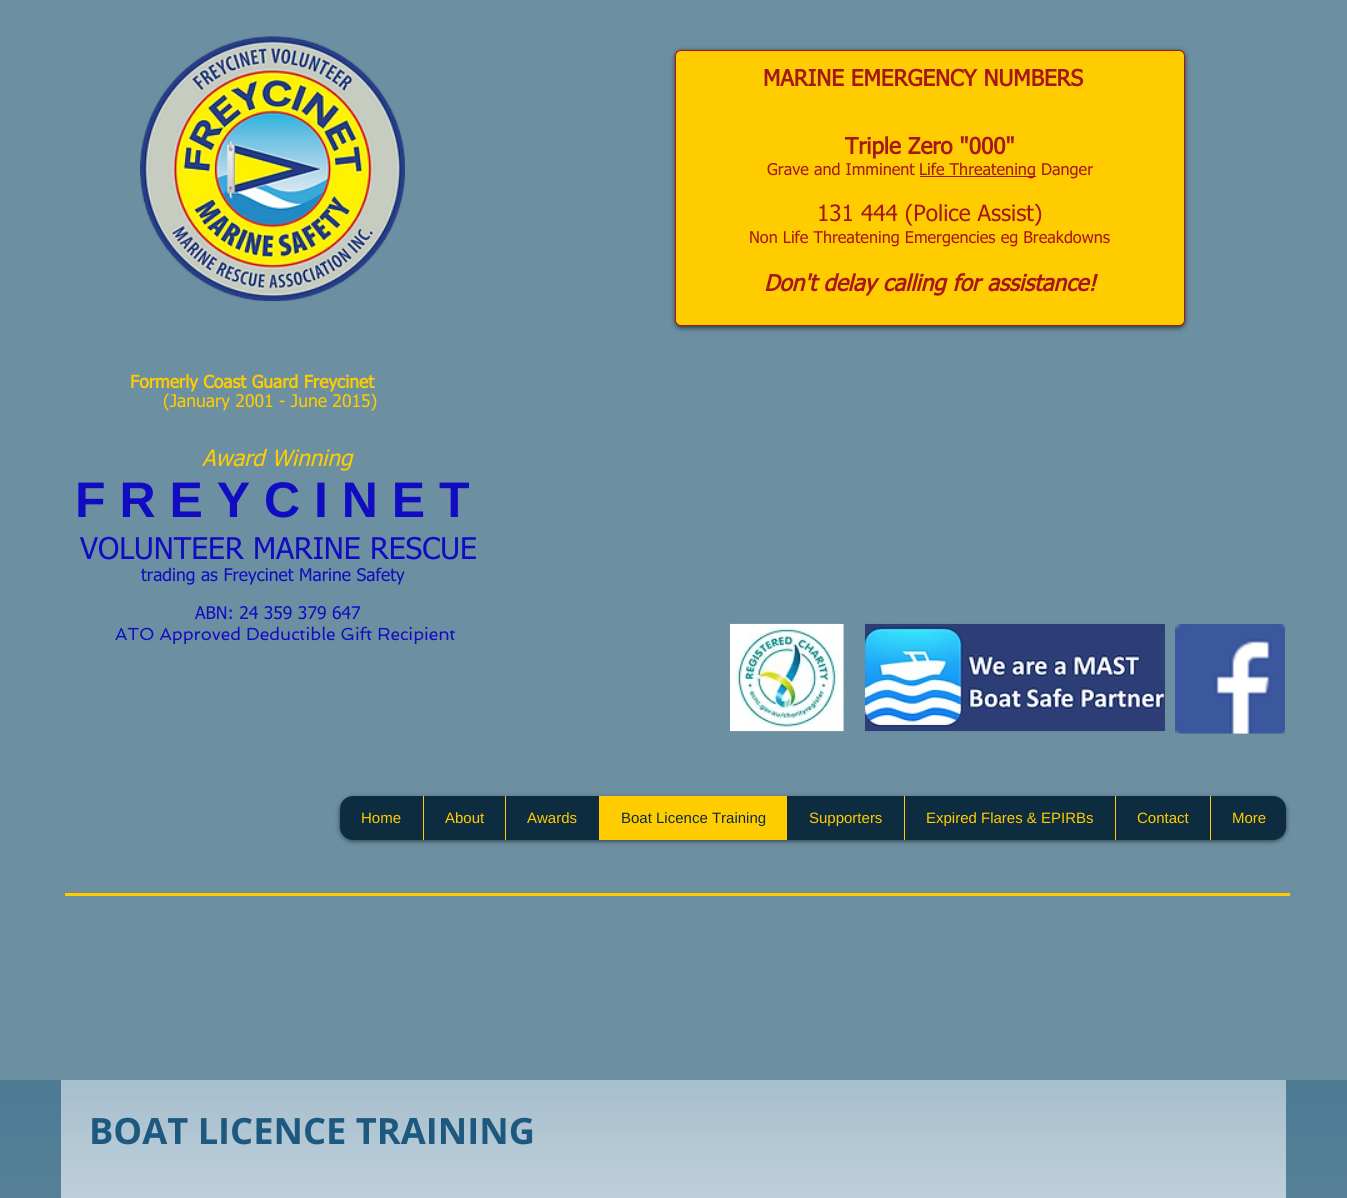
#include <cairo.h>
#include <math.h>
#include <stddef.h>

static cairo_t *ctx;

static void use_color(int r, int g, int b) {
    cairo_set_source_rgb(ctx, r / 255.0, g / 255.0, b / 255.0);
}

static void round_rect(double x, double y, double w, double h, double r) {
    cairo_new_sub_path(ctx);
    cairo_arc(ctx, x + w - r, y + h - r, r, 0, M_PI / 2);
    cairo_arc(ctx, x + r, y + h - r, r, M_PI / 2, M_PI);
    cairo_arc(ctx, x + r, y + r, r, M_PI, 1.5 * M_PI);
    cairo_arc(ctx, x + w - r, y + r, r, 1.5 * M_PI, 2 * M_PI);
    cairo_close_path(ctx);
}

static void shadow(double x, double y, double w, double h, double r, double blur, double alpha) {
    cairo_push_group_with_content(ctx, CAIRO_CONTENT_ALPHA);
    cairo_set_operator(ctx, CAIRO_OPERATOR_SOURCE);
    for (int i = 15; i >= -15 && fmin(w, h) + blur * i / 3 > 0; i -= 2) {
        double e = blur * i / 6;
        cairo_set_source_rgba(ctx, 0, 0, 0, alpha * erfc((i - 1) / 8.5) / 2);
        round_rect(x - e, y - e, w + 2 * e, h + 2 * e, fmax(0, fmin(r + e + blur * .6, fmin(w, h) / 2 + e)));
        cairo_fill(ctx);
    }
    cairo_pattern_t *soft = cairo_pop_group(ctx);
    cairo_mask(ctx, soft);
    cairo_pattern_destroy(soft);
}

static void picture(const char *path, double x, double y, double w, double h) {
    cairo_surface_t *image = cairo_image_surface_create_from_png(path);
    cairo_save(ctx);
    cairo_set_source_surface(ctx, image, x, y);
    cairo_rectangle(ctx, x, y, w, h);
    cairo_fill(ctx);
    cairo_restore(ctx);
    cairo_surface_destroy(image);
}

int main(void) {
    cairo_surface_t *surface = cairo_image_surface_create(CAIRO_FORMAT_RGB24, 1347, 1198);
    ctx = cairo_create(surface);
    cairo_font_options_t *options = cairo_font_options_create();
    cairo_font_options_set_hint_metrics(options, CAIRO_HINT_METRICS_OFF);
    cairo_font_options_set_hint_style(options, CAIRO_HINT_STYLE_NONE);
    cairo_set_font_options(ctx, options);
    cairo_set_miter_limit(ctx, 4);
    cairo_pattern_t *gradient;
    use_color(108, 144, 161);
    cairo_paint(ctx);
    picture("img1.png", 140, 36, 265, 266);
    use_color(0, 0, 0);
    shadow(675, 51, 510, 277, 6, 2.5, 0.6);
    use_color(255, 204, 0);
    round_rect(675.5, 50.5, 509, 275, 5.5);
    cairo_fill_preserve(ctx);
    use_color(167, 23, 23);
    cairo_set_line_width(ctx, 1);
    cairo_stroke(ctx);
    cairo_select_font_face(ctx, "tahoma", CAIRO_FONT_SLANT_NORMAL, CAIRO_FONT_WEIGHT_BOLD);
    cairo_set_font_size(ctx, 22.5);
    cairo_move_to(ctx, 763, 86);
    cairo_show_text(ctx, "MARINE EMERGENCY NUMBERS");
    cairo_move_to(ctx, 845, 154);
    cairo_show_text(ctx, "Triple Zero \"000\"");
    cairo_select_font_face(ctx, "tahoma", CAIRO_FONT_SLANT_NORMAL, CAIRO_FONT_WEIGHT_NORMAL);
    cairo_set_font_size(ctx, 16.25);
    cairo_move_to(ctx, 767, 175);
    cairo_show_text(ctx, "Grave and Imminent");
    cairo_rectangle(ctx, 920, 176, 116, 1);
    cairo_fill(ctx);
    cairo_move_to(ctx, 919, 175);
    cairo_show_text(ctx, "Life Threatening Danger");
    cairo_set_font_size(ctx, 22.5);
    cairo_move_to(ctx, 817, 221);
    cairo_show_text(ctx, "131 444 (Police Assist)");
    cairo_set_font_size(ctx, 16.25);
    cairo_move_to(ctx, 749, 243);
    cairo_show_text(ctx, "Non Life Threatening Emergencies eg Breakdowns");
    cairo_select_font_face(ctx, "tahoma", CAIRO_FONT_SLANT_ITALIC, CAIRO_FONT_WEIGHT_BOLD);
    cairo_set_font_size(ctx, 22.5);
    cairo_move_to(ctx, 764, 291);
    cairo_show_text(ctx, "Don't delay calling for assistance!");
    cairo_select_font_face(ctx, "tahoma", CAIRO_FONT_SLANT_NORMAL, CAIRO_FONT_WEIGHT_BOLD);
    cairo_set_font_size(ctx, 17.5);
    use_color(255, 204, 0);
    cairo_move_to(ctx, 130, 388);
    cairo_show_text(ctx, "Formerly Coast Guard Freycinet");
    cairo_select_font_face(ctx, "tahoma", CAIRO_FONT_SLANT_NORMAL, CAIRO_FONT_WEIGHT_NORMAL);
    cairo_move_to(ctx, 163, 407);
    cairo_show_text(ctx, "(January 2001 - June 2015)");
    cairo_select_font_face(ctx, "tahoma", CAIRO_FONT_SLANT_ITALIC, CAIRO_FONT_WEIGHT_NORMAL);
    cairo_set_font_size(ctx, 22.5);
    cairo_move_to(ctx, 202, 466);
    cairo_show_text(ctx, "Award Winning");
    cairo_select_font_face(ctx, "Liberation Sans", CAIRO_FONT_SLANT_NORMAL, CAIRO_FONT_WEIGHT_BOLD);
    cairo_set_font_size(ctx, 50);
    use_color(17, 12, 194);
    cairo_move_to(ctx, 75, 517);
    cairo_show_text(ctx, "F R E Y C I N E T");
    cairo_select_font_face(ctx, "tahoma", CAIRO_FONT_SLANT_NORMAL, CAIRO_FONT_WEIGHT_NORMAL);
    cairo_set_font_size(ctx, 30);
    cairo_move_to(ctx, 80, 559);
    cairo_show_text(ctx, "VOLUNTEER MARINE RESCUE");
    cairo_set_font_size(ctx, 17.5);
    cairo_move_to(ctx, 141, 581);
    cairo_show_text(ctx, "trading as Freycinet Marine Safety");
    cairo_move_to(ctx, 195, 619);
    cairo_show_text(ctx, "ABN: 24 359 379 647");
    cairo_select_font_face(ctx, "Spinnaker", CAIRO_FONT_SLANT_NORMAL, CAIRO_FONT_WEIGHT_NORMAL);
    cairo_move_to(ctx, 115, 640);
    cairo_show_text(ctx, "ATO Approved Deductible Gift Recipient");
    picture("img2.png", 730, 623, 114, 109);
    picture("img3.png", 865, 623, 300, 109);
    picture("img4.png", 1175, 623, 110, 111);
    use_color(0, 0, 0);
    shadow(340, 798, 946, 43, 13, 2.5, 0.6);
    use_color(14, 44, 63);
    round_rect(340, 796, 946, 44, 13);
    cairo_fill(ctx);
    cairo_select_font_face(ctx, "Liberation Sans", CAIRO_FONT_SLANT_NORMAL, CAIRO_FONT_WEIGHT_NORMAL);
    cairo_set_font_size(ctx, 15);
    use_color(255, 204, 0);
    cairo_move_to(ctx, 361, 823);
    cairo_show_text(ctx, "Home");
    cairo_rectangle(ctx, 423, 796, 1, 44);
    cairo_fill(ctx);
    cairo_move_to(ctx, 445, 823);
    cairo_show_text(ctx, "About");
    cairo_rectangle(ctx, 505, 796, 1, 44);
    cairo_fill(ctx);
    cairo_move_to(ctx, 527, 823);
    cairo_show_text(ctx, "Awards");
    cairo_rectangle(ctx, 599, 796, 188, 44);
    cairo_fill(ctx);
    use_color(14, 44, 63);
    cairo_move_to(ctx, 621, 823);
    cairo_show_text(ctx, "Boat Licence Training");
    use_color(255, 204, 0);
    cairo_move_to(ctx, 809, 823);
    cairo_show_text(ctx, "Supporters");
    cairo_rectangle(ctx, 904, 796, 1, 44);
    cairo_fill(ctx);
    cairo_move_to(ctx, 926, 823);
    cairo_show_text(ctx, "Expired Flares & EPIRBs");
    cairo_rectangle(ctx, 1115, 796, 1, 44);
    cairo_fill(ctx);
    cairo_move_to(ctx, 1137, 823);
    cairo_show_text(ctx, "Contact");
    cairo_rectangle(ctx, 1210, 796, 1, 44);
    cairo_fill(ctx);
    cairo_move_to(ctx, 1232, 823);
    cairo_show_text(ctx, "More");
    cairo_rectangle(ctx, 65, 893, 1225, 3);
    cairo_fill(ctx);
    use_color(255, 255, 255);
    cairo_rectangle(ctx, 61, 1080, 1225, 118);
    cairo_fill(ctx);
    gradient = cairo_pattern_create_linear(674, 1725, 674, 1080);
    cairo_pattern_add_color_stop_rgba(gradient, 0.06, 0.169, 0.525, 0.749, 0.39);
    cairo_pattern_add_color_stop_rgba(gradient, 0.3, 0.169, 0.525, 0.749, 0);
    cairo_pattern_add_color_stop_rgba(gradient, 0.3, 0.114, 0.349, 0.498, 0);
    cairo_pattern_add_color_stop_rgba(gradient, 1, 0.114, 0.349, 0.498, 0.39);
    cairo_set_source(ctx, gradient);
    cairo_pattern_destroy(gradient);
    cairo_rectangle(ctx, 0, 1080, 1347, 118);
    cairo_fill(ctx);
    cairo_select_font_face(ctx, "Open Sans", CAIRO_FONT_SLANT_NORMAL, CAIRO_FONT_WEIGHT_BOLD);
    cairo_set_font_size(ctx, 36.25);
    use_color(29, 89, 127);
    cairo_move_to(ctx, 89, 1144);
    cairo_show_text(ctx, "BOAT LICENCE TRAINING");
    cairo_surface_write_to_png(surface, "result.png");
    cairo_font_options_destroy(options);
    cairo_destroy(ctx);
    cairo_surface_destroy(surface);
    return 0;
}
